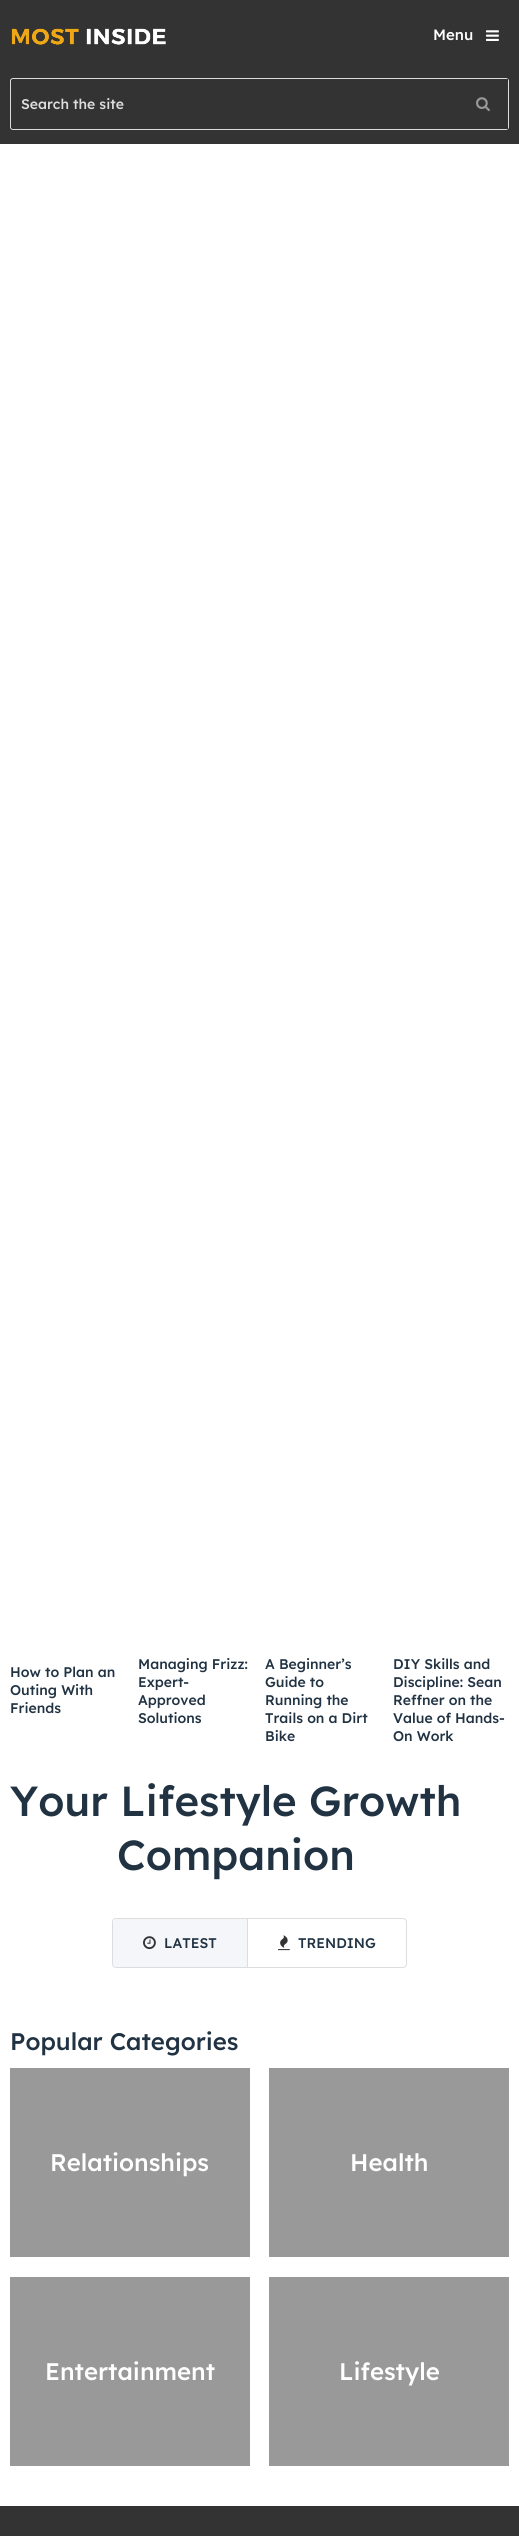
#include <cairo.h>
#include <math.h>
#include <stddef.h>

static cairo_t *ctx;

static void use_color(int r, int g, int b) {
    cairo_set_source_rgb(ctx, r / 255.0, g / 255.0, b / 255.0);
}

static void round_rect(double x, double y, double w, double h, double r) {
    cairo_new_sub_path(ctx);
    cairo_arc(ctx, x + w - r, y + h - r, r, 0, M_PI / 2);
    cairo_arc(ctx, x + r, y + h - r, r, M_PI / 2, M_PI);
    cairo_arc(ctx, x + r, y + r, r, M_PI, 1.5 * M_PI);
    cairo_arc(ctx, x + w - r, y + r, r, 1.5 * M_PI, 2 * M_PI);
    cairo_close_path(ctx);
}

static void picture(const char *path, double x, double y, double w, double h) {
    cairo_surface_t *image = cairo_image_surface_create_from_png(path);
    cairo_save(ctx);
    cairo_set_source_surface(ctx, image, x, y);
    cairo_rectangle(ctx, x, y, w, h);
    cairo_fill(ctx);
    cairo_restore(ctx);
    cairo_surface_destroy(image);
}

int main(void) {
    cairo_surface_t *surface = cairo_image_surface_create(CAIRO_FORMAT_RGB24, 519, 2536);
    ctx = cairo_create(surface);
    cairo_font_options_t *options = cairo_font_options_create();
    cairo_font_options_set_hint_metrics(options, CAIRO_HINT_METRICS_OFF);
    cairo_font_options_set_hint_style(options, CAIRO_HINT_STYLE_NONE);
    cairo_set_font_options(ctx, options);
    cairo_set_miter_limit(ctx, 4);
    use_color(255, 255, 255);
    cairo_paint(ctx);
    use_color(51, 51, 51);
    cairo_rectangle(ctx, 0, 0, 519, 144);
    cairo_fill(ctx);
    picture("img1.png", 11, 28, 155, 17);
    cairo_select_font_face(ctx, "Lexend Deca Medium", CAIRO_FONT_SLANT_NORMAL, CAIRO_FONT_WEIGHT_NORMAL);
    cairo_set_font_size(ctx, 15);
    use_color(255, 255, 255);
    cairo_move_to(ctx, 433, 40);
    cairo_show_text(ctx, "Menu");
    picture("img2.png", 486, 30, 13, 11);
    round_rect(10.5, 78.5, 498, 51, 2.5);
    use_color(221, 221, 221);
    cairo_set_line_width(ctx, 1);
    cairo_stroke(ctx);
    use_color(51, 51, 51);
    round_rect(11, 79, 497, 50, 3);
    cairo_fill(ctx);
    cairo_set_font_size(ctx, 14);
    use_color(221, 221, 221);
    cairo_move_to(ctx, 21, 109);
    cairo_show_text(ctx, "Search the site");
    use_color(51, 51, 51);
    cairo_rectangle(ctx, 506, 79, 2, 50);
    cairo_fill(ctx);
    picture("img3.png", 476, 97, 14, 15);
    use_color(33, 51, 67);
    cairo_move_to(ctx, 10, 1677);
    cairo_show_text(ctx, "How to Plan an");
    cairo_move_to(ctx, 10, 1695);
    cairo_show_text(ctx, "Outing With");
    cairo_move_to(ctx, 10, 1713);
    cairo_show_text(ctx, "Friends");
    cairo_move_to(ctx, 138, 1669);
    cairo_show_text(ctx, "Managing Frizz:");
    cairo_move_to(ctx, 138, 1687);
    cairo_show_text(ctx, "Expert-");
    cairo_move_to(ctx, 138, 1705);
    cairo_show_text(ctx, "Approved");
    cairo_move_to(ctx, 138, 1723);
    cairo_show_text(ctx, "Solutions");
    cairo_move_to(ctx, 265, 1669);
    cairo_show_text(ctx, "A Beginner’s");
    cairo_move_to(ctx, 265, 1687);
    cairo_show_text(ctx, "Guide to");
    cairo_move_to(ctx, 265, 1705);
    cairo_show_text(ctx, "Running the");
    cairo_move_to(ctx, 265, 1723);
    cairo_show_text(ctx, "Trails on a Dirt");
    cairo_move_to(ctx, 265, 1741);
    cairo_show_text(ctx, "Bike");
    cairo_move_to(ctx, 393, 1669);
    cairo_show_text(ctx, "DIY Skills and");
    cairo_move_to(ctx, 393, 1687);
    cairo_show_text(ctx, "Discipline: Sean");
    cairo_move_to(ctx, 393, 1705);
    cairo_show_text(ctx, "Reffner on the");
    cairo_move_to(ctx, 393, 1723);
    cairo_show_text(ctx, "Value of Hands-");
    cairo_move_to(ctx, 393, 1741);
    cairo_show_text(ctx, "On Work");
    cairo_set_font_size(ctx, 42);
    cairo_move_to(ctx, 10, 1816);
    cairo_show_text(ctx, "Your Lifestyle Growth");
    cairo_move_to(ctx, 117, 1870);
    cairo_show_text(ctx, "Companion");
    round_rect(112.5, 1918.5, 294, 49, 3.5);
    use_color(221, 221, 221);
    cairo_stroke(ctx);
    use_color(245, 246, 249);
    cairo_new_path(ctx);
    cairo_move_to(ctx, 116, 1919);
    cairo_line_to(ctx, 248, 1919);
    cairo_line_to(ctx, 248, 1967);
    cairo_line_to(ctx, 116, 1967);
    cairo_curve_to(ctx, 114.5, 1967, 113, 1965.5, 113, 1964);
    cairo_line_to(ctx, 113, 1922);
    cairo_curve_to(ctx, 113, 1920.5, 114.5, 1919, 116, 1919);
    cairo_close_path(ctx);
    cairo_fill(ctx);
    use_color(221, 221, 221);
    cairo_rectangle(ctx, 247, 1919, 1, 48);
    cairo_fill(ctx);
    picture("img4.png", 143, 1936, 13, 14);
    cairo_set_font_size(ctx, 14);
    use_color(33, 51, 67);
    cairo_move_to(ctx, 164, 1948);
    cairo_show_text(ctx, "LATEST");
    picture("img5.png", 278, 1935, 12, 16);
    cairo_move_to(ctx, 298, 1948);
    cairo_show_text(ctx, "TRENDING");
    cairo_set_font_size(ctx, 24);
    cairo_move_to(ctx, 10, 2050);
    cairo_show_text(ctx, "Popular Categories");
    use_color(153, 153, 153);
    cairo_rectangle(ctx, 10, 2068, 240, 189);
    cairo_fill(ctx);
    use_color(255, 255, 255);
    cairo_move_to(ctx, 50, 2171);
    cairo_show_text(ctx, "Relationships");
    use_color(153, 153, 153);
    cairo_rectangle(ctx, 269, 2068, 240, 189);
    cairo_fill(ctx);
    use_color(255, 255, 255);
    cairo_move_to(ctx, 350, 2171);
    cairo_show_text(ctx, "Health");
    use_color(153, 153, 153);
    cairo_rectangle(ctx, 10, 2277, 240, 189);
    cairo_fill(ctx);
    use_color(255, 255, 255);
    cairo_move_to(ctx, 45, 2380);
    cairo_show_text(ctx, "Entertainment");
    use_color(153, 153, 153);
    cairo_rectangle(ctx, 269, 2277, 240, 189);
    cairo_fill(ctx);
    use_color(255, 255, 255);
    cairo_move_to(ctx, 339, 2380);
    cairo_show_text(ctx, "Lifestyle");
    use_color(51, 51, 51);
    cairo_rectangle(ctx, 0, 2506, 519, 30);
    cairo_fill(ctx);
    cairo_surface_write_to_png(surface, "result.png");
    cairo_font_options_destroy(options);
    cairo_destroy(ctx);
    cairo_surface_destroy(surface);
    return 0;
}
